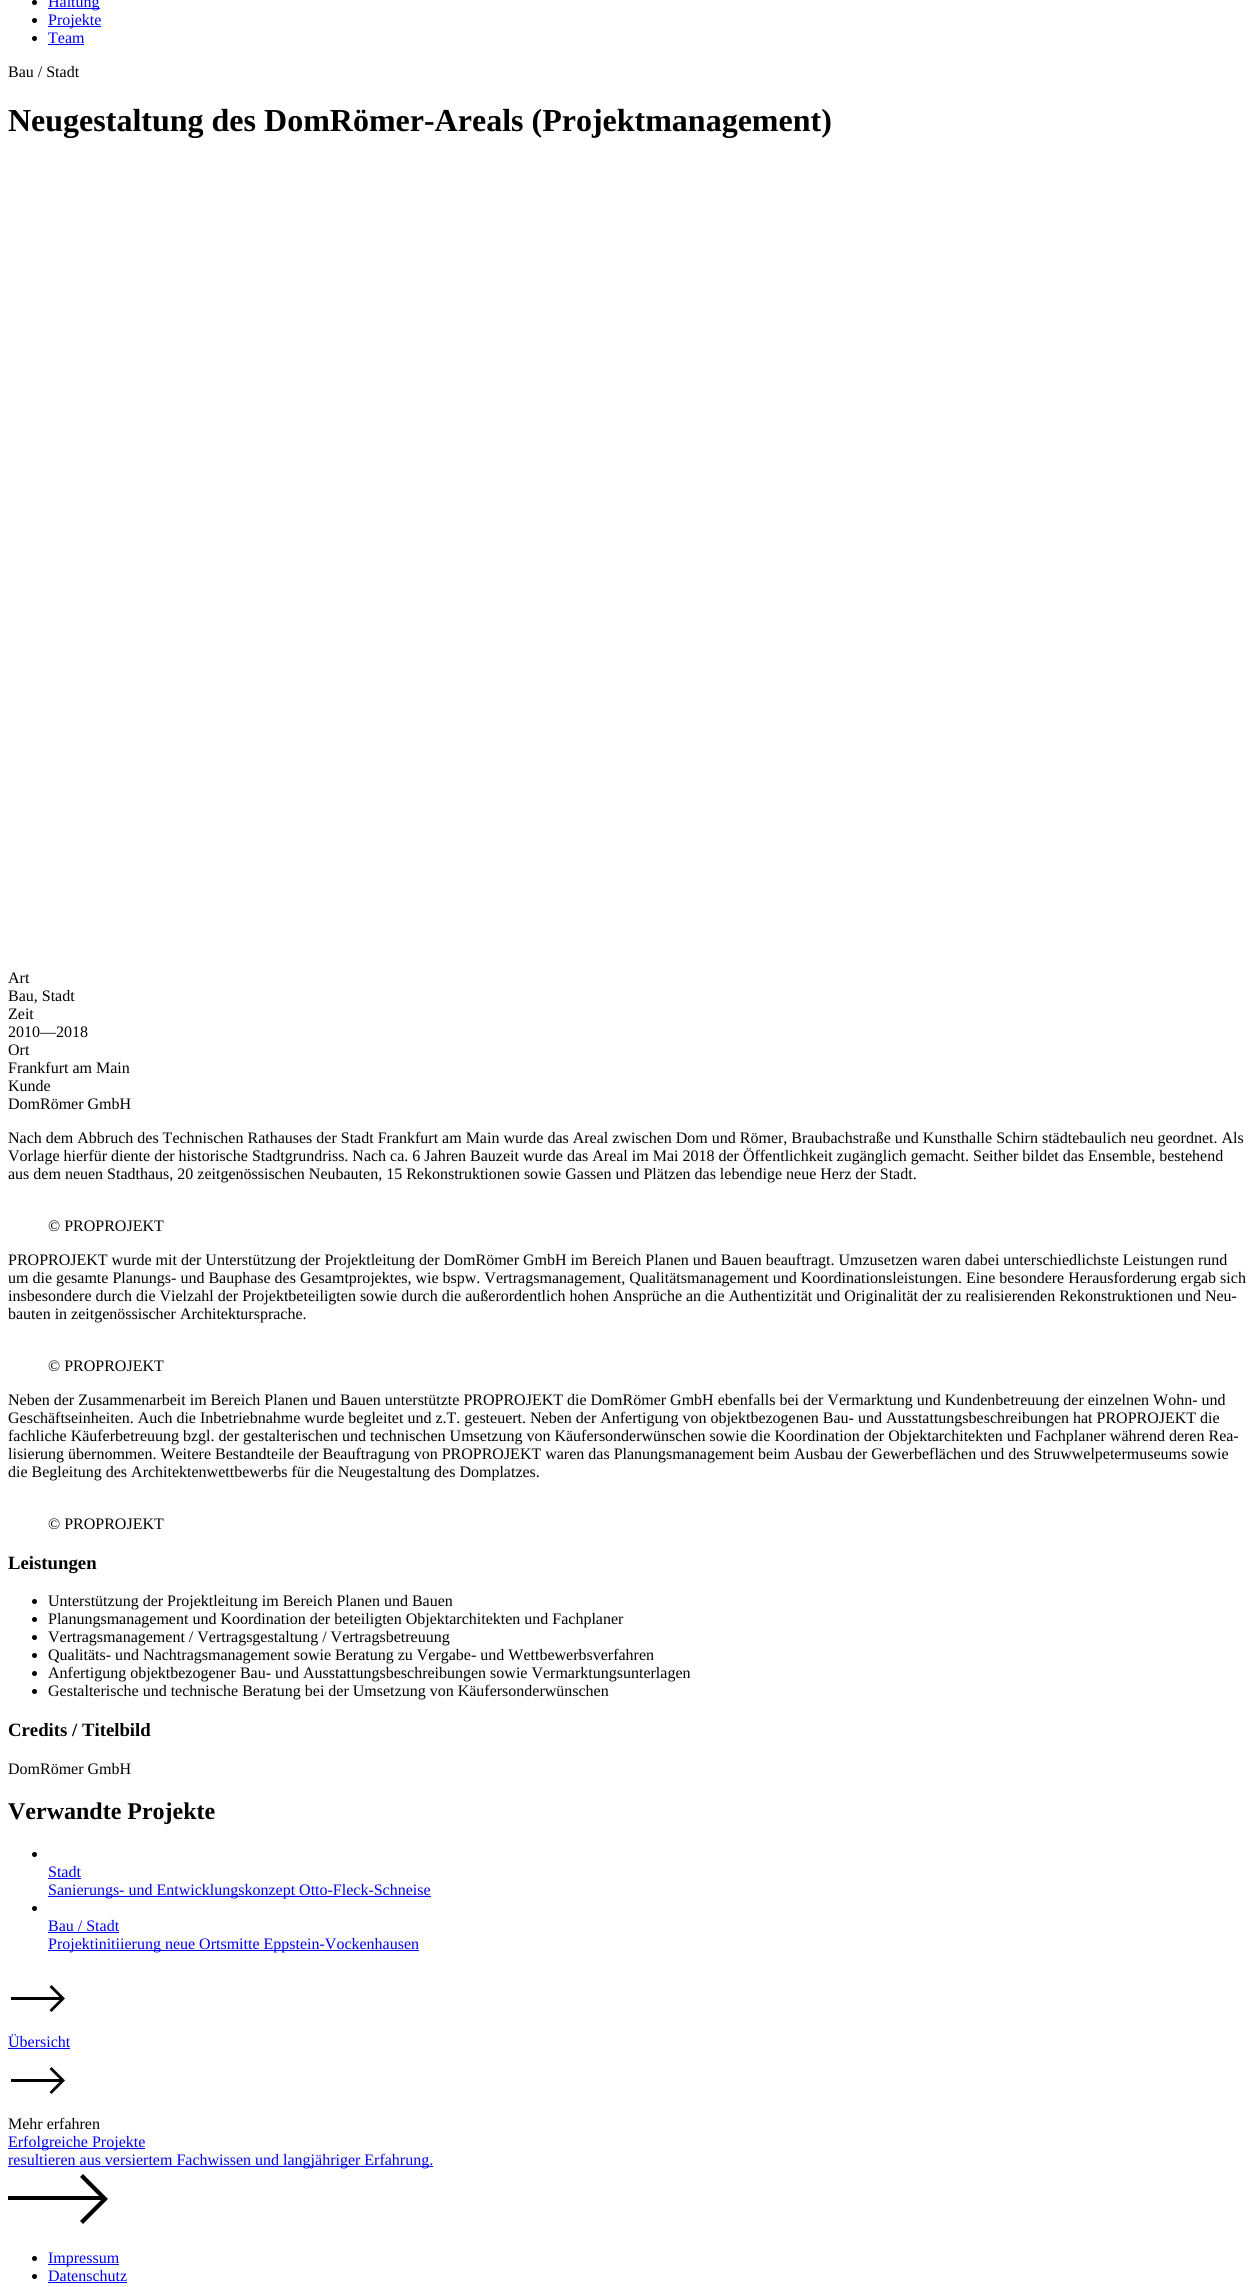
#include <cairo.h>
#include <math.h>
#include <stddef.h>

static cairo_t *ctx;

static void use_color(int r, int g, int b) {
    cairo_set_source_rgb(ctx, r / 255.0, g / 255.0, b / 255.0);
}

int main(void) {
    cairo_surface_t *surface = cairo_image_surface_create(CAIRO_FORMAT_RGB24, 1255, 2287);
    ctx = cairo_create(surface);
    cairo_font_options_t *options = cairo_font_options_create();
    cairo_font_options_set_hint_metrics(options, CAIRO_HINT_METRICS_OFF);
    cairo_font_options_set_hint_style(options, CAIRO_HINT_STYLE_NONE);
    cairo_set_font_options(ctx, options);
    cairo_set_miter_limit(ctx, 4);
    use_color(255, 255, 255);
    cairo_paint(ctx);
    use_color(0, 0, 0);
    cairo_arc(ctx, 34.5, 2.5, 2.5, 0, 2 * M_PI);
    cairo_fill(ctx);
    use_color(0, 0, 238);
    cairo_rectangle(ctx, 48, 8, 52, 1);
    cairo_fill(ctx);
    cairo_select_font_face(ctx, "Liberation Serif", CAIRO_FONT_SLANT_NORMAL, CAIRO_FONT_WEIGHT_NORMAL);
    cairo_set_font_size(ctx, 16);
    cairo_move_to(ctx, 48, 7);
    cairo_show_text(ctx, "Haltung");
    use_color(0, 0, 0);
    cairo_new_path(ctx);
    cairo_arc(ctx, 34.5, 20.5, 2.5, 0, 2 * M_PI);
    cairo_fill(ctx);
    use_color(0, 0, 238);
    cairo_rectangle(ctx, 48, 26, 53, 1);
    cairo_fill(ctx);
    cairo_move_to(ctx, 48, 25);
    cairo_show_text(ctx, "Projekte");
    use_color(0, 0, 0);
    cairo_new_path(ctx);
    cairo_arc(ctx, 34.5, 38.5, 2.5, 0, 2 * M_PI);
    cairo_fill(ctx);
    use_color(0, 0, 238);
    cairo_move_to(ctx, 48, 43);
    cairo_show_text(ctx, "Team");
    cairo_rectangle(ctx, 48, 44, 36, 1);
    cairo_fill(ctx);
    use_color(0, 0, 0);
    cairo_move_to(ctx, 8, 77);
    cairo_show_text(ctx, "Bau / Stadt");
    cairo_select_font_face(ctx, "Liberation Serif", CAIRO_FONT_SLANT_NORMAL, CAIRO_FONT_WEIGHT_BOLD);
    cairo_set_font_size(ctx, 32);
    cairo_move_to(ctx, 8, 131);
    cairo_show_text(ctx, "Neugestaltung des DomRömer-Areals (Projektmanagement)");
    cairo_select_font_face(ctx, "Liberation Serif", CAIRO_FONT_SLANT_NORMAL, CAIRO_FONT_WEIGHT_NORMAL);
    cairo_set_font_size(ctx, 16);
    cairo_move_to(ctx, 8, 983);
    cairo_show_text(ctx, "Art");
    cairo_move_to(ctx, 8, 1001);
    cairo_show_text(ctx, "Bau, Stadt");
    cairo_move_to(ctx, 8, 1019);
    cairo_show_text(ctx, "Zeit");
    cairo_move_to(ctx, 8, 1037);
    cairo_show_text(ctx, "2010—2018");
    cairo_move_to(ctx, 8, 1055);
    cairo_show_text(ctx, "Ort");
    cairo_move_to(ctx, 8, 1073);
    cairo_show_text(ctx, "Frankfurt am Main");
    cairo_move_to(ctx, 8, 1091);
    cairo_show_text(ctx, "Kunde");
    cairo_move_to(ctx, 8, 1109);
    cairo_show_text(ctx, "DomRömer GmbH");
    cairo_move_to(ctx, 8, 1143);
    cairo_show_text(ctx, "Nach dem Abbruch des Technischen Rathauses der Stadt Frankfurt am Main wurde das Areal zwischen Dom und Römer, Braubachstraße und Kunsthalle Schirn städtebaulich neu geordnet. Als");
    cairo_move_to(ctx, 8, 1161);
    cairo_show_text(ctx, "Vorlage hierfür diente der historische Stadtgrundriss. Nach ca. 6 Jahren Bauzeit wurde das Areal im Mai 2018 der Öffentlichkeit zugänglich gemacht. Seither bildet das Ensemble, bestehend");
    cairo_move_to(ctx, 8, 1179);
    cairo_show_text(ctx, "aus dem neuen Stadthaus, 20 zeitgenössischen Neubauten, 15 Rekonstruktionen sowie Gassen und Plätzen das lebendige neue Herz der Stadt.");
    cairo_move_to(ctx, 48, 1231);
    cairo_show_text(ctx, "© PROPROJEKT");
    cairo_move_to(ctx, 8, 1265);
    cairo_show_text(ctx, "PROPROJEKT wurde mit der Unterstützung der Projektleitung der DomRömer GmbH im Bereich Planen und Bauen beauftragt. Umzusetzen waren dabei unterschiedlichste Leistungen rund");
    cairo_move_to(ctx, 8, 1283);
    cairo_show_text(ctx, "um die gesamte Planungs- und Bauphase des Gesamtprojektes, wie bspw. Vertragsmanagement, Qualitätsmanagement und Koordinationsleistungen. Eine besondere Herausforderung ergab sich");
    cairo_move_to(ctx, 8, 1301);
    cairo_show_text(ctx, "insbesondere durch die Vielzahl der Projektbeteiligten sowie durch die außerordentlich hohen Ansprüche an die Authentizität und Originalität der zu realisierenden Rekonstruktionen und Neu-");
    cairo_move_to(ctx, 8, 1319);
    cairo_show_text(ctx, "bauten in zeitgenössischer Architektursprache.");
    cairo_move_to(ctx, 48, 1371);
    cairo_show_text(ctx, "© PROPROJEKT");
    cairo_move_to(ctx, 8, 1405);
    cairo_show_text(ctx, "Neben der Zusammenarbeit im Bereich Planen und Bauen unterstützte PROPROJEKT die DomRömer GmbH ebenfalls bei der Vermarktung und Kundenbetreuung der einzelnen Wohn- und");
    cairo_move_to(ctx, 8, 1423);
    cairo_show_text(ctx, "Geschäftseinheiten. Auch die Inbetriebnahme wurde begleitet und z.T. gesteuert. Neben der Anfertigung von objektbezogenen Bau- und Ausstattungsbeschreibungen hat PROPROJEKT die");
    cairo_move_to(ctx, 8, 1441);
    cairo_show_text(ctx, "fachliche Käuferbetreuung bzgl. der gestalterischen und technischen Umsetzung von Käufersonderwünschen sowie die Koordination der Objektarchitekten und Fachplaner während deren Rea-");
    cairo_move_to(ctx, 8, 1459);
    cairo_show_text(ctx, "lisierung übernommen. Weitere Bestandteile der Beauftragung von PROPROJEKT waren das Planungsmanagement beim Ausbau der Gewerbeflächen und des Struwwelpetermuseums sowie");
    cairo_move_to(ctx, 8, 1477);
    cairo_show_text(ctx, "die Begleitung des Architektenwettbewerbs für die Neugestaltung des Domplatzes.");
    cairo_move_to(ctx, 48, 1529);
    cairo_show_text(ctx, "© PROPROJEKT");
    cairo_select_font_face(ctx, "Liberation Serif", CAIRO_FONT_SLANT_NORMAL, CAIRO_FONT_WEIGHT_BOLD);
    cairo_set_font_size(ctx, 18.75);
    cairo_move_to(ctx, 8, 1569);
    cairo_show_text(ctx, "Leistungen");
    cairo_new_path(ctx);
    cairo_arc(ctx, 34.5, 1601.5, 2.5, 0, 2 * M_PI);
    cairo_fill(ctx);
    cairo_select_font_face(ctx, "Liberation Serif", CAIRO_FONT_SLANT_NORMAL, CAIRO_FONT_WEIGHT_NORMAL);
    cairo_set_font_size(ctx, 16);
    cairo_move_to(ctx, 48, 1606);
    cairo_show_text(ctx, "Unterstützung der Projektleitung im Bereich Planen und Bauen");
    cairo_new_path(ctx);
    cairo_arc(ctx, 34.5, 1619.5, 2.5, 0, 2 * M_PI);
    cairo_fill(ctx);
    cairo_move_to(ctx, 48, 1624);
    cairo_show_text(ctx, "Planungsmanagement und Koordination der beteiligten Objektarchitekten und Fachplaner");
    cairo_new_path(ctx);
    cairo_arc(ctx, 34.5, 1637.5, 2.5, 0, 2 * M_PI);
    cairo_fill(ctx);
    cairo_move_to(ctx, 48, 1642);
    cairo_show_text(ctx, "Vertragsmanagement / Vertragsgestaltung / Vertragsbetreuung");
    cairo_new_path(ctx);
    cairo_arc(ctx, 34.5, 1655.5, 2.5, 0, 2 * M_PI);
    cairo_fill(ctx);
    cairo_move_to(ctx, 48, 1660);
    cairo_show_text(ctx, "Qualitäts- und Nachtragsmanagement sowie Beratung zu Vergabe- und Wettbewerbsverfahren");
    cairo_new_path(ctx);
    cairo_arc(ctx, 34.5, 1673.5, 2.5, 0, 2 * M_PI);
    cairo_fill(ctx);
    cairo_move_to(ctx, 48, 1678);
    cairo_show_text(ctx, "Anfertigung objektbezogener Bau- und Ausstattungsbeschreibungen sowie Vermarktungsunterlagen");
    cairo_new_path(ctx);
    cairo_arc(ctx, 34.5, 1691.5, 2.5, 0, 2 * M_PI);
    cairo_fill(ctx);
    cairo_move_to(ctx, 48, 1696);
    cairo_show_text(ctx, "Gestalterische und technische Beratung bei der Umsetzung von Käufersonderwünschen");
    cairo_select_font_face(ctx, "Liberation Serif", CAIRO_FONT_SLANT_NORMAL, CAIRO_FONT_WEIGHT_BOLD);
    cairo_set_font_size(ctx, 18.75);
    cairo_move_to(ctx, 8, 1736);
    cairo_show_text(ctx, "Credits / Titelbild");
    cairo_select_font_face(ctx, "Liberation Serif", CAIRO_FONT_SLANT_NORMAL, CAIRO_FONT_WEIGHT_NORMAL);
    cairo_set_font_size(ctx, 16);
    cairo_move_to(ctx, 8, 1774);
    cairo_show_text(ctx, "DomRömer GmbH");
    cairo_select_font_face(ctx, "Liberation Serif", CAIRO_FONT_SLANT_NORMAL, CAIRO_FONT_WEIGHT_BOLD);
    cairo_set_font_size(ctx, 24);
    cairo_move_to(ctx, 8, 1819);
    cairo_show_text(ctx, "Verwandte Projekte");
    cairo_new_path(ctx);
    cairo_arc(ctx, 34.5, 1854.5, 2.5, 0, 2 * M_PI);
    cairo_fill(ctx);
    cairo_select_font_face(ctx, "Liberation Serif", CAIRO_FONT_SLANT_NORMAL, CAIRO_FONT_WEIGHT_NORMAL);
    cairo_set_font_size(ctx, 16);
    use_color(0, 0, 238);
    cairo_move_to(ctx, 48, 1877);
    cairo_show_text(ctx, "Stadt");
    cairo_rectangle(ctx, 48, 1878, 33, 1);
    cairo_fill(ctx);
    cairo_rectangle(ctx, 48, 1896, 383, 1);
    cairo_fill(ctx);
    cairo_move_to(ctx, 48, 1895);
    cairo_show_text(ctx, "Sanierungs- und Entwicklungskonzept Otto-Fleck-Schneise");
    use_color(0, 0, 0);
    cairo_new_path(ctx);
    cairo_arc(ctx, 34.5, 1908.5, 2.5, 0, 2 * M_PI);
    cairo_fill(ctx);
    use_color(0, 0, 238);
    cairo_move_to(ctx, 48, 1931);
    cairo_show_text(ctx, "Bau / Stadt");
    cairo_rectangle(ctx, 48, 1932, 71, 1);
    cairo_fill(ctx);
    cairo_rectangle(ctx, 48, 1950, 371, 1);
    cairo_fill(ctx);
    cairo_move_to(ctx, 48, 1949);
    cairo_show_text(ctx, "Projektinitiierung neue Ortsmitte Eppstein-Vockenhausen");
    use_color(0, 0, 0);
    cairo_rectangle(ctx, 11, 1997, 51, 3);
    cairo_fill(ctx);
    cairo_new_path(ctx);
    cairo_move_to(ctx, 65, 1998.5);
    cairo_line_to(ctx, 51.5, 2012);
    cairo_line_to(ctx, 49.5, 2010);
    cairo_line_to(ctx, 61, 1998.5);
    cairo_line_to(ctx, 49.5, 1987);
    cairo_line_to(ctx, 51.5, 1985);
    cairo_close_path(ctx);
    cairo_fill(ctx);
    use_color(0, 0, 238);
    cairo_move_to(ctx, 8, 2047);
    cairo_show_text(ctx, "Übersicht");
    cairo_rectangle(ctx, 8, 2048, 62, 1);
    cairo_fill(ctx);
    use_color(0, 0, 0);
    cairo_rectangle(ctx, 11, 2079, 51, 3);
    cairo_fill(ctx);
    cairo_new_path(ctx);
    cairo_move_to(ctx, 65, 2080.5);
    cairo_line_to(ctx, 51.5, 2094);
    cairo_line_to(ctx, 49.5, 2092);
    cairo_line_to(ctx, 61, 2080.5);
    cairo_line_to(ctx, 49.5, 2069);
    cairo_line_to(ctx, 51.5, 2067);
    cairo_close_path(ctx);
    cairo_fill(ctx);
    cairo_move_to(ctx, 8, 2129);
    cairo_show_text(ctx, "Mehr erfahren");
    use_color(0, 0, 238);
    cairo_rectangle(ctx, 8, 2148, 137, 1);
    cairo_fill(ctx);
    cairo_move_to(ctx, 8, 2147);
    cairo_show_text(ctx, "Erfolgreiche Projekte");
    cairo_rectangle(ctx, 8, 2166, 425, 1);
    cairo_fill(ctx);
    cairo_move_to(ctx, 8, 2165);
    cairo_show_text(ctx, "resultieren aus versiertem Fachwissen und langjähriger Erfahrung.");
    use_color(0, 0, 0);
    cairo_rectangle(ctx, 8, 2196, 95, 4);
    cairo_fill(ctx);
    cairo_new_path(ctx);
    cairo_move_to(ctx, 108, 2199);
    cairo_line_to(ctx, 83, 2224);
    cairo_line_to(ctx, 80, 2221);
    cairo_line_to(ctx, 102, 2199);
    cairo_line_to(ctx, 80, 2177);
    cairo_line_to(ctx, 83, 2174);
    cairo_close_path(ctx);
    cairo_fill(ctx);
    cairo_arc(ctx, 34.5, 2258.5, 2.5, 0, 2 * M_PI);
    cairo_fill(ctx);
    use_color(0, 0, 238);
    cairo_rectangle(ctx, 48, 2264, 71, 1);
    cairo_fill(ctx);
    cairo_move_to(ctx, 48, 2263);
    cairo_show_text(ctx, "Impressum");
    use_color(0, 0, 0);
    cairo_new_path(ctx);
    cairo_arc(ctx, 34.5, 2276.5, 2.5, 0, 2 * M_PI);
    cairo_fill(ctx);
    use_color(0, 0, 238);
    cairo_move_to(ctx, 48, 2281);
    cairo_show_text(ctx, "Datenschutz");
    cairo_rectangle(ctx, 48, 2282, 79, 1);
    cairo_fill(ctx);
    cairo_surface_write_to_png(surface, "result.png");
    cairo_font_options_destroy(options);
    cairo_destroy(ctx);
    cairo_surface_destroy(surface);
    return 0;
}
